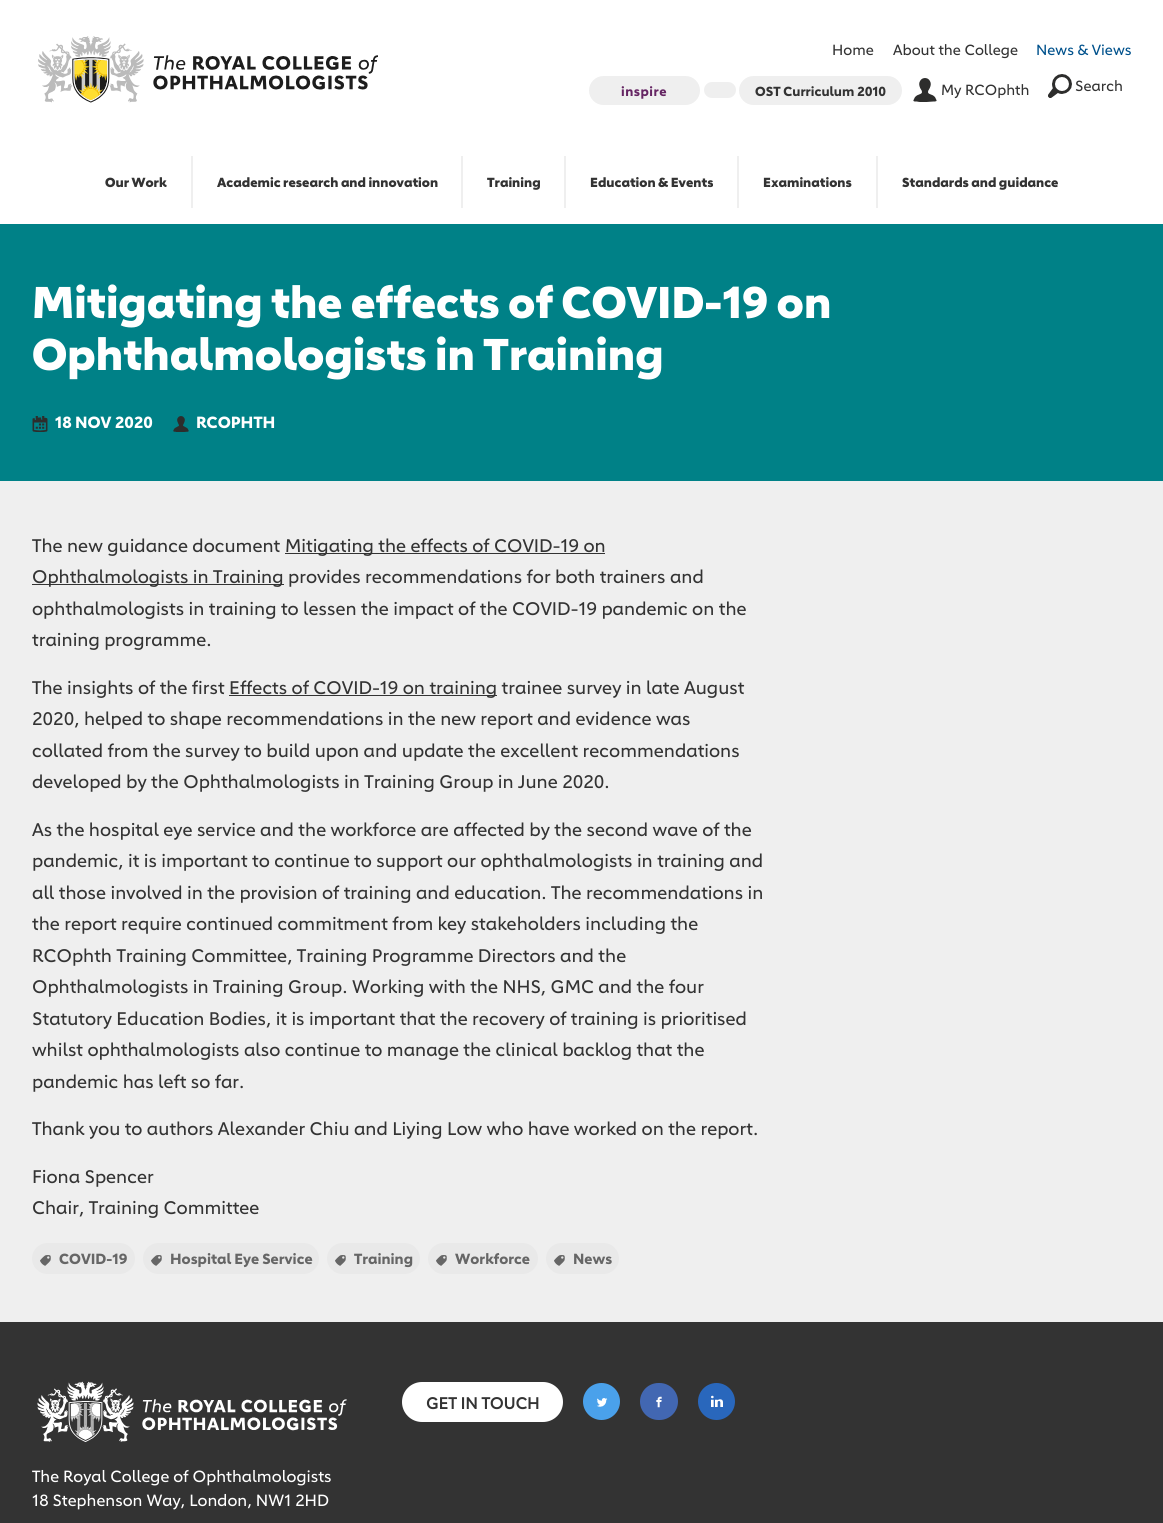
#include <cairo.h>
#include <math.h>
#include <stddef.h>

static cairo_t *ctx;

static void use_color(int r, int g, int b) {
    cairo_set_source_rgb(ctx, r / 255.0, g / 255.0, b / 255.0);
}

static void spaced_text(double x, double y, const char *s, double letter, double word) {
    cairo_move_to(ctx, x, y);
    while (*s) {
        char ch[5] = {0};
        int n = 0;
        do ch[n++] = *s++; while ((*s & 0xC0) == 0x80);
        cairo_show_text(ctx, ch);
        cairo_rel_move_to(ctx, letter + word * (*ch == ' '), 0);
    }
}

static void round_rect(double x, double y, double w, double h, double r) {
    cairo_new_sub_path(ctx);
    cairo_arc(ctx, x + w - r, y + h - r, r, 0, M_PI / 2);
    cairo_arc(ctx, x + r, y + h - r, r, M_PI / 2, M_PI);
    cairo_arc(ctx, x + r, y + r, r, M_PI, 1.5 * M_PI);
    cairo_arc(ctx, x + w - r, y + r, r, 1.5 * M_PI, 2 * M_PI);
    cairo_close_path(ctx);
}

static void picture(const char *path, double x, double y, double w, double h) {
    cairo_surface_t *image = cairo_image_surface_create_from_png(path);
    cairo_save(ctx);
    cairo_set_source_surface(ctx, image, x, y);
    cairo_rectangle(ctx, x, y, w, h);
    cairo_fill(ctx);
    cairo_restore(ctx);
    cairo_surface_destroy(image);
}

int main(void) {
    cairo_surface_t *surface = cairo_image_surface_create(CAIRO_FORMAT_RGB24, 1163, 1523);
    ctx = cairo_create(surface);
    cairo_font_options_t *options = cairo_font_options_create();
    cairo_font_options_set_hint_metrics(options, CAIRO_HINT_METRICS_OFF);
    cairo_font_options_set_hint_style(options, CAIRO_HINT_STYLE_NONE);
    cairo_set_font_options(ctx, options);
    cairo_set_miter_limit(ctx, 4);
    use_color(255, 255, 255);
    cairo_paint(ctx);
    picture("img1.png", 38, 36, 340, 67);
    cairo_select_font_face(ctx, "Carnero", CAIRO_FONT_SLANT_NORMAL, CAIRO_FONT_WEIGHT_NORMAL);
    cairo_set_font_size(ctx, 14.5);
    use_color(51, 51, 51);
    cairo_move_to(ctx, 832, 55);
    cairo_show_text(ctx, "Home");
    cairo_move_to(ctx, 893, 55);
    cairo_show_text(ctx, "About the College");
    use_color(0, 81, 140);
    cairo_move_to(ctx, 1036, 55);
    cairo_show_text(ctx, "News & Views");
    use_color(239, 239, 239);
    round_rect(589, 76, 111, 29, 14.5);
    cairo_fill(ctx);
    cairo_select_font_face(ctx, "Carnero", CAIRO_FONT_SLANT_NORMAL, CAIRO_FONT_WEIGHT_BOLD);
    cairo_set_font_size(ctx, 13);
    use_color(101, 37, 99);
    spaced_text(621, 96, "inspire", 0.5, 0);
    use_color(239, 239, 239);
    round_rect(704, 82, 32, 16, 8);
    cairo_fill(ctx);
    round_rect(739, 76, 163, 29, 14.5);
    cairo_fill(ctx);
    use_color(51, 51, 51);
    cairo_move_to(ctx, 755, 96);
    cairo_show_text(ctx, "OST Curriculum 2010");
    picture("img2.png", 913, 78, 24, 24);
    cairo_select_font_face(ctx, "Carnero", CAIRO_FONT_SLANT_NORMAL, CAIRO_FONT_WEIGHT_NORMAL);
    cairo_set_font_size(ctx, 14.5);
    cairo_move_to(ctx, 941, 95);
    cairo_show_text(ctx, "My RCOphth");
    picture("img3.png", 1048, 74, 24, 24);
    cairo_move_to(ctx, 1075, 91);
    cairo_show_text(ctx, "Search");
    use_color(239, 239, 239);
    cairo_rectangle(ctx, 191, 156, 2, 52);
    cairo_fill(ctx);
    cairo_select_font_face(ctx, "Carnero Black", CAIRO_FONT_SLANT_NORMAL, CAIRO_FONT_WEIGHT_NORMAL);
    cairo_set_font_size(ctx, 13);
    use_color(51, 51, 51);
    cairo_move_to(ctx, 105, 187);
    cairo_show_text(ctx, "Our Work");
    use_color(239, 239, 239);
    cairo_rectangle(ctx, 461, 156, 2, 52);
    cairo_fill(ctx);
    use_color(51, 51, 51);
    cairo_move_to(ctx, 217, 187);
    cairo_show_text(ctx, "Academic research and innovation");
    use_color(239, 239, 239);
    cairo_rectangle(ctx, 564, 156, 2, 52);
    cairo_fill(ctx);
    use_color(51, 51, 51);
    cairo_move_to(ctx, 487, 187);
    cairo_show_text(ctx, "Training");
    use_color(239, 239, 239);
    cairo_rectangle(ctx, 737, 156, 2, 52);
    cairo_fill(ctx);
    use_color(51, 51, 51);
    cairo_move_to(ctx, 590, 187);
    cairo_show_text(ctx, "Education & Events");
    use_color(239, 239, 239);
    cairo_rectangle(ctx, 876, 156, 2, 52);
    cairo_fill(ctx);
    use_color(51, 51, 51);
    cairo_move_to(ctx, 763, 187);
    cairo_show_text(ctx, "Examinations");
    cairo_move_to(ctx, 902, 187);
    cairo_show_text(ctx, "Standards and guidance");
    use_color(239, 239, 239);
    cairo_rectangle(ctx, 0, 481, 1163, 841);
    cairo_fill(ctx);
    use_color(0, 129, 135);
    cairo_rectangle(ctx, 0, 224, 1163, 257);
    cairo_fill(ctx);
    cairo_set_font_size(ctx, 43.75);
    use_color(255, 255, 255);
    cairo_move_to(ctx, 32, 318);
    cairo_show_text(ctx, "Mitigating the effects of COVID-19 on");
    cairo_move_to(ctx, 32, 370);
    cairo_show_text(ctx, "Ophthalmologists in Training");
    picture("img4.png", 32, 416, 16, 16);
    cairo_select_font_face(ctx, "Carnero", CAIRO_FONT_SLANT_NORMAL, CAIRO_FONT_WEIGHT_BOLD);
    cairo_set_font_size(ctx, 16);
    cairo_move_to(ctx, 55, 428);
    cairo_show_text(ctx, "18 NOV 2020");
    picture("img5.png", 173, 416, 16, 16);
    cairo_move_to(ctx, 196, 428);
    cairo_show_text(ctx, "RCOPHTH");
    cairo_select_font_face(ctx, "Carnero", CAIRO_FONT_SLANT_NORMAL, CAIRO_FONT_WEIGHT_NORMAL);
    cairo_set_font_size(ctx, 18);
    use_color(51, 51, 51);
    cairo_move_to(ctx, 32, 552);
    cairo_show_text(ctx, "The new guidance document");
    cairo_rectangle(ctx, 285, 553, 320, 1);
    cairo_fill(ctx);
    cairo_move_to(ctx, 285, 552);
    cairo_show_text(ctx, "Mitigating the effects of COVID-19 on");
    cairo_rectangle(ctx, 32, 584, 252, 1);
    cairo_fill(ctx);
    cairo_move_to(ctx, 32, 583);
    cairo_show_text(ctx, "Ophthalmologists in Training provides recommendations for both trainers and");
    cairo_move_to(ctx, 32, 615);
    cairo_show_text(ctx, "ophthalmologists in training to lessen the impact of the COVID-19 pandemic on the");
    cairo_move_to(ctx, 32, 646);
    cairo_show_text(ctx, "training programme.");
    cairo_move_to(ctx, 32, 694);
    cairo_show_text(ctx, "The insights of the first");
    cairo_rectangle(ctx, 229, 695, 268, 1);
    cairo_fill(ctx);
    cairo_move_to(ctx, 229, 694);
    cairo_show_text(ctx, "Effects of COVID-19 on training trainee survey in late August");
    cairo_move_to(ctx, 32, 725);
    cairo_show_text(ctx, "2020, helped to shape recommendations in the new report and evidence was");
    cairo_move_to(ctx, 32, 757);
    cairo_show_text(ctx, "collated from the survey to build upon and update the excellent recommendations");
    cairo_move_to(ctx, 32, 788);
    cairo_show_text(ctx, "developed by the Ophthalmologists in Training Group in June 2020.");
    cairo_move_to(ctx, 32, 836);
    cairo_show_text(ctx, "As the hospital eye service and the workforce are affected by the second wave of the");
    cairo_move_to(ctx, 32, 867);
    cairo_show_text(ctx, "pandemic, it is important to continue to support our ophthalmologists in training and");
    cairo_move_to(ctx, 32, 899);
    cairo_show_text(ctx, "all those involved in the provision of training and education. The recommendations in");
    cairo_move_to(ctx, 32, 930);
    cairo_show_text(ctx, "the report require continued commitment from key stakeholders including the");
    cairo_move_to(ctx, 32, 962);
    cairo_show_text(ctx, "RCOphth Training Committee, Training Programme Directors and the");
    cairo_move_to(ctx, 32, 993);
    cairo_show_text(ctx, "Ophthalmologists in Training Group. Working with the NHS, GMC and the four");
    cairo_move_to(ctx, 32, 1025);
    cairo_show_text(ctx, "Statutory Education Bodies, it is important that the recovery of training is prioritised");
    cairo_move_to(ctx, 32, 1056);
    cairo_show_text(ctx, "whilst ophthalmologists also continue to manage the clinical backlog that the");
    cairo_move_to(ctx, 32, 1088);
    cairo_show_text(ctx, "pandemic has left so far.");
    cairo_move_to(ctx, 32, 1135);
    cairo_show_text(ctx, "Thank you to authors Alexander Chiu and Liying Low who have worked on the report.");
    cairo_move_to(ctx, 32, 1183);
    cairo_show_text(ctx, "Fiona Spencer");
    cairo_move_to(ctx, 32, 1214);
    cairo_show_text(ctx, "Chair, Training Committee");
    use_color(233, 233, 233);
    round_rect(32, 1243, 103, 31, 15.5);
    cairo_fill(ctx);
    picture("img6.png", 40, 1255, 11, 11);
    cairo_select_font_face(ctx, "Carnero", CAIRO_FONT_SLANT_NORMAL, CAIRO_FONT_WEIGHT_BOLD);
    cairo_set_font_size(ctx, 14.5);
    use_color(102, 102, 102);
    cairo_move_to(ctx, 59, 1264);
    cairo_show_text(ctx, "COVID-19");
    use_color(233, 233, 233);
    round_rect(143, 1243, 176, 31, 15.5);
    cairo_fill(ctx);
    picture("img6.png", 151, 1255, 11, 11);
    use_color(102, 102, 102);
    cairo_move_to(ctx, 170, 1264);
    cairo_show_text(ctx, "Hospital Eye Service");
    use_color(233, 233, 233);
    round_rect(327, 1243, 93, 31, 15.5);
    cairo_fill(ctx);
    picture("img6.png", 335, 1255, 11, 11);
    use_color(102, 102, 102);
    cairo_move_to(ctx, 354, 1264);
    cairo_show_text(ctx, "Training");
    use_color(233, 233, 233);
    round_rect(428, 1243, 110, 31, 15.5);
    cairo_fill(ctx);
    picture("img6.png", 436, 1255, 11, 11);
    use_color(102, 102, 102);
    cairo_move_to(ctx, 455, 1264);
    cairo_show_text(ctx, "Workforce");
    use_color(233, 233, 233);
    round_rect(546, 1243, 73, 31, 15.5);
    cairo_fill(ctx);
    picture("img6.png", 554, 1255, 11, 11);
    use_color(102, 102, 102);
    cairo_move_to(ctx, 573, 1264);
    cairo_show_text(ctx, "News");
    use_color(51, 51, 51);
    cairo_rectangle(ctx, 0, 1322, 1163, 201);
    cairo_fill(ctx);
    use_color(255, 255, 255);
    round_rect(402, 1382, 161, 40, 20);
    cairo_fill(ctx);
    cairo_select_font_face(ctx, "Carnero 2", CAIRO_FONT_SLANT_NORMAL, CAIRO_FONT_WEIGHT_BOLD);
    cairo_set_font_size(ctx, 16);
    use_color(51, 51, 51);
    cairo_move_to(ctx, 426, 1409);
    cairo_show_text(ctx, "GET IN TOUCH");
    use_color(74, 161, 235);
    cairo_new_path(ctx);
    cairo_arc(ctx, 601.5, 1401.5, 18.5, 0, 2 * M_PI);
    cairo_fill(ctx);
    picture("img7.png", 597, 1398, 11, 9);
    use_color(66, 103, 178);
    round_rect(640, 1383, 38, 37, 18.5);
    cairo_fill(ctx);
    picture("img8.png", 656, 1396, 6, 12);
    use_color(41, 103, 188);
    cairo_arc(ctx, 716.5, 1401.5, 18.5, 0, 2 * M_PI);
    cairo_fill(ctx);
    picture("img9.png", 711, 1395, 12, 12);
    picture("img10.png", 37, 1381, 310, 61);
    cairo_select_font_face(ctx, "Carnero", CAIRO_FONT_SLANT_NORMAL, CAIRO_FONT_WEIGHT_NORMAL);
    use_color(255, 255, 255);
    cairo_move_to(ctx, 32, 1482);
    cairo_show_text(ctx, "The Royal College of Ophthalmologists");
    cairo_move_to(ctx, 32, 1506);
    cairo_show_text(ctx, "18 Stephenson Way, London, NW1 2HD");
    cairo_surface_write_to_png(surface, "result.png");
    cairo_font_options_destroy(options);
    cairo_destroy(ctx);
    cairo_surface_destroy(surface);
    return 0;
}
